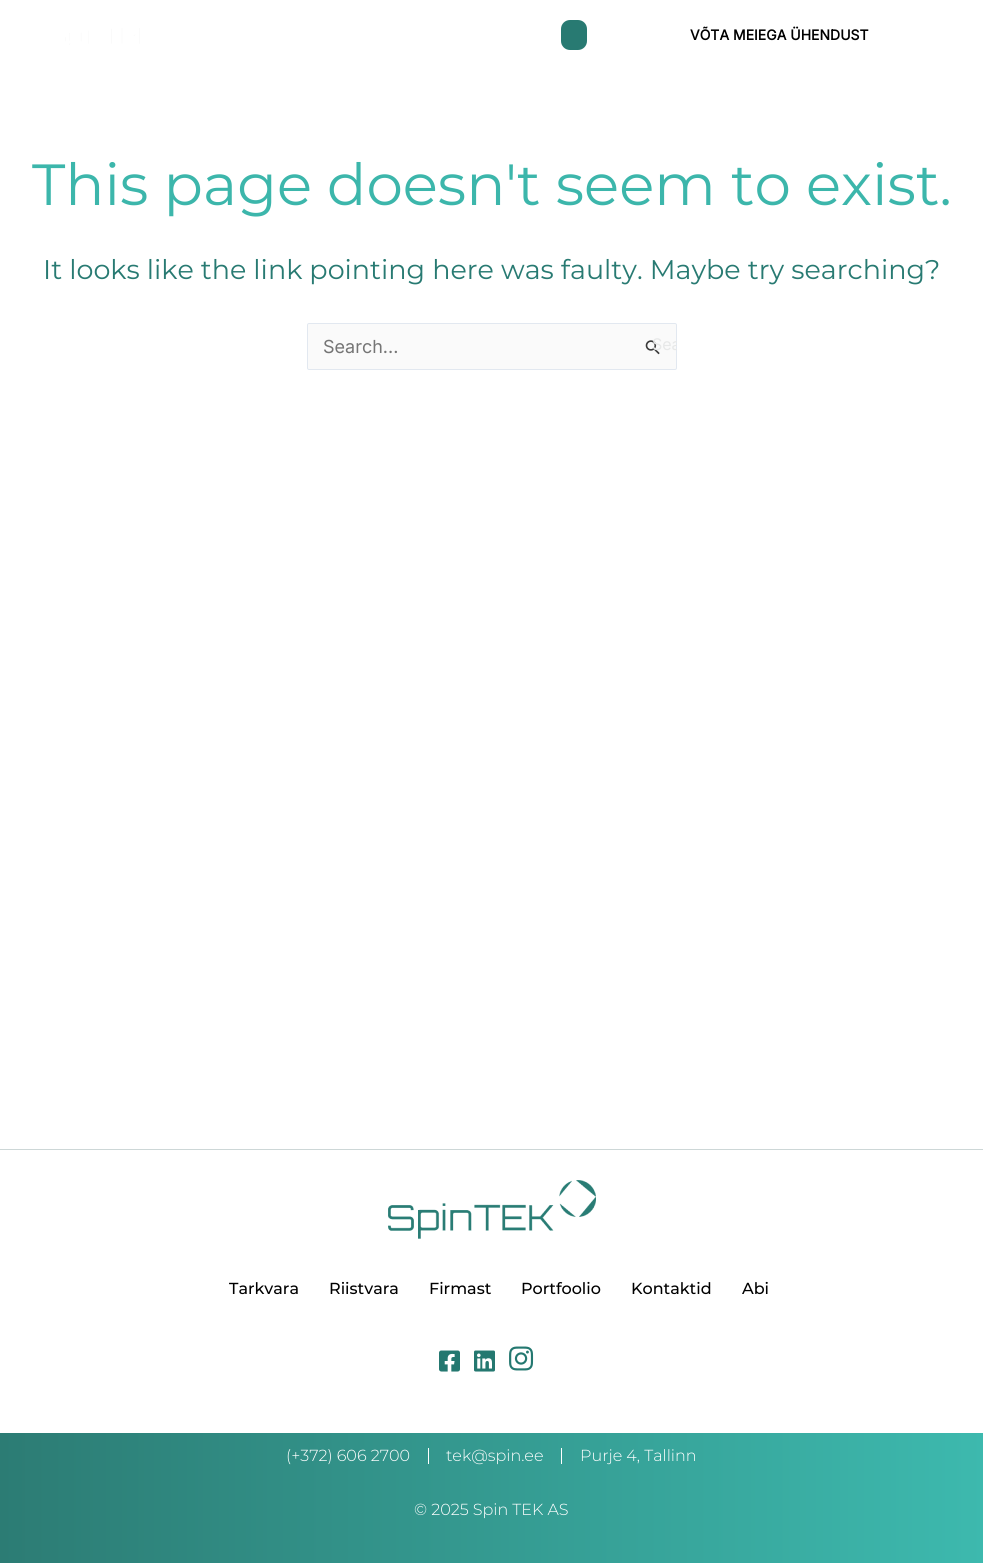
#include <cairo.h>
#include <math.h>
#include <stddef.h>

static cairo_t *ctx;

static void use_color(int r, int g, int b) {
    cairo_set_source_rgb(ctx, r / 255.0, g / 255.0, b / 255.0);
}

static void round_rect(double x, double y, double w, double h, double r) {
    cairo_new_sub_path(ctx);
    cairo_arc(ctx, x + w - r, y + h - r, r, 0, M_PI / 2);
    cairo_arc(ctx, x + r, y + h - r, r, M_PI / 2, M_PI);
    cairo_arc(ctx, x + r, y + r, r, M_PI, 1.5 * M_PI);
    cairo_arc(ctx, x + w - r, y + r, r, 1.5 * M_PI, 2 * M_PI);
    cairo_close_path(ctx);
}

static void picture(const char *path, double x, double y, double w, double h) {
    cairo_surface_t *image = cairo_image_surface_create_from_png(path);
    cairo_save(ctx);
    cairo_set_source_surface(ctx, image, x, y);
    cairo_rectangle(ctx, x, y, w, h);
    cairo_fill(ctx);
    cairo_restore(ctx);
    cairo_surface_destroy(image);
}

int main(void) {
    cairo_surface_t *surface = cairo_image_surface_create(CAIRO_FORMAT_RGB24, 983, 1563);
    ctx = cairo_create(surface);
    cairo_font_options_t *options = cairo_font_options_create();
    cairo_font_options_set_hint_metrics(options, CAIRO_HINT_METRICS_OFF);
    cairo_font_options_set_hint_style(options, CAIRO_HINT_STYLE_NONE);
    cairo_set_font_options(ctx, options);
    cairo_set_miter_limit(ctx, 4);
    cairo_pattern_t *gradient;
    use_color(255, 255, 255);
    cairo_paint(ctx);
    picture("img1.png", 65, 28, 75, 17);
    use_color(40, 122, 114);
    round_rect(561, 20, 26, 30, 9);
    cairo_fill(ctx);
    cairo_select_font_face(ctx, "Inter", CAIRO_FONT_SLANT_NORMAL, CAIRO_FONT_WEIGHT_BOLD);
    cairo_set_font_size(ctx, 14);
    use_color(0, 0, 0);
    cairo_move_to(ctx, 690, 40);
    cairo_show_text(ctx, "VÕTA MEIEGA ÜHENDUST");
    cairo_select_font_face(ctx, "Montserrat", CAIRO_FONT_SLANT_NORMAL, CAIRO_FONT_WEIGHT_NORMAL);
    cairo_set_font_size(ctx, 58);
    use_color(60, 182, 171);
    cairo_move_to(ctx, 32, 205);
    cairo_show_text(ctx, "This page doesn't seem to exist.");
    cairo_set_font_size(ctx, 27);
    use_color(40, 122, 114);
    cairo_move_to(ctx, 43, 279);
    cairo_show_text(ctx, "It looks like the link pointing here was faulty. Maybe try searching?");
    use_color(250, 250, 250);
    round_rect(307.5, 323.5, 369, 46, 1.5);
    cairo_fill_preserve(ctx);
    use_color(226, 232, 240);
    cairo_set_line_width(ctx, 1);
    cairo_stroke(ctx);
    cairo_select_font_face(ctx, "Inter", CAIRO_FONT_SLANT_NORMAL, CAIRO_FONT_WEIGHT_NORMAL);
    cairo_set_font_size(ctx, 18);
    use_color(117, 117, 117);
    cairo_move_to(ctx, 323, 353);
    cairo_show_text(ctx, "Search...");
    picture("img2.png", 645, 340, 15, 15);
    cairo_save(ctx);
    round_rect(632, 323, 45, 42, 2);
    cairo_clip(ctx);
    cairo_set_font_size(ctx, 16);
    use_color(231, 232, 232);
    cairo_move_to(ctx, 652, 350);
    cairo_show_text(ctx, "Sea");
    cairo_restore(ctx);
    use_color(205, 215, 215);
    cairo_rectangle(ctx, 0, 1149, 983, 1);
    cairo_fill(ctx);
    picture("img3.png", 388, 1180, 208, 59);
    cairo_select_font_face(ctx, "Montserrat Medium", CAIRO_FONT_SLANT_NORMAL, CAIRO_FONT_WEIGHT_NORMAL);
    cairo_set_font_size(ctx, 16);
    use_color(0, 0, 0);
    cairo_move_to(ctx, 229, 1294);
    cairo_show_text(ctx, "Tarkvara");
    cairo_move_to(ctx, 329, 1294);
    cairo_show_text(ctx, "Riistvara");
    cairo_move_to(ctx, 429, 1294);
    cairo_show_text(ctx, "Firmast");
    cairo_move_to(ctx, 521, 1294);
    cairo_show_text(ctx, "Portfoolio");
    cairo_move_to(ctx, 631, 1294);
    cairo_show_text(ctx, "Kontaktid");
    cairo_move_to(ctx, 742, 1294);
    cairo_show_text(ctx, "Abi");
    picture("img4.png", 439, 1350, 21, 22);
    picture("img5.png", 474, 1350, 21, 22);
    picture("img6.png", 509, 1346, 25, 25);
    gradient = cairo_pattern_create_linear(0, 1498, 983, 1498);
    cairo_pattern_add_color_stop_rgba(gradient, 0, 0.173, 0.486, 0.455, 1);
    cairo_pattern_add_color_stop_rgba(gradient, 1, 0.239, 0.725, 0.682, 1);
    cairo_set_source(ctx, gradient);
    cairo_pattern_destroy(gradient);
    cairo_rectangle(ctx, 0, 1433, 983, 130);
    cairo_fill(ctx);
    cairo_select_font_face(ctx, "Montserrat Light", CAIRO_FONT_SLANT_NORMAL, CAIRO_FONT_WEIGHT_NORMAL);
    use_color(255, 255, 255);
    cairo_move_to(ctx, 286, 1461);
    cairo_show_text(ctx, "(+372) 606 2700");
    cairo_rectangle(ctx, 428, 1448, 1, 16);
    cairo_fill(ctx);
    cairo_move_to(ctx, 446, 1461);
    cairo_show_text(ctx, "tek@spin.ee");
    cairo_rectangle(ctx, 561, 1448, 1, 16);
    cairo_fill(ctx);
    cairo_move_to(ctx, 580, 1461);
    cairo_show_text(ctx, "Purje 4, Tallinn");
    cairo_move_to(ctx, 414, 1515);
    cairo_show_text(ctx, "© 2025 Spin TEK AS");
    cairo_surface_write_to_png(surface, "result.png");
    cairo_font_options_destroy(options);
    cairo_destroy(ctx);
    cairo_surface_destroy(surface);
    return 0;
}
